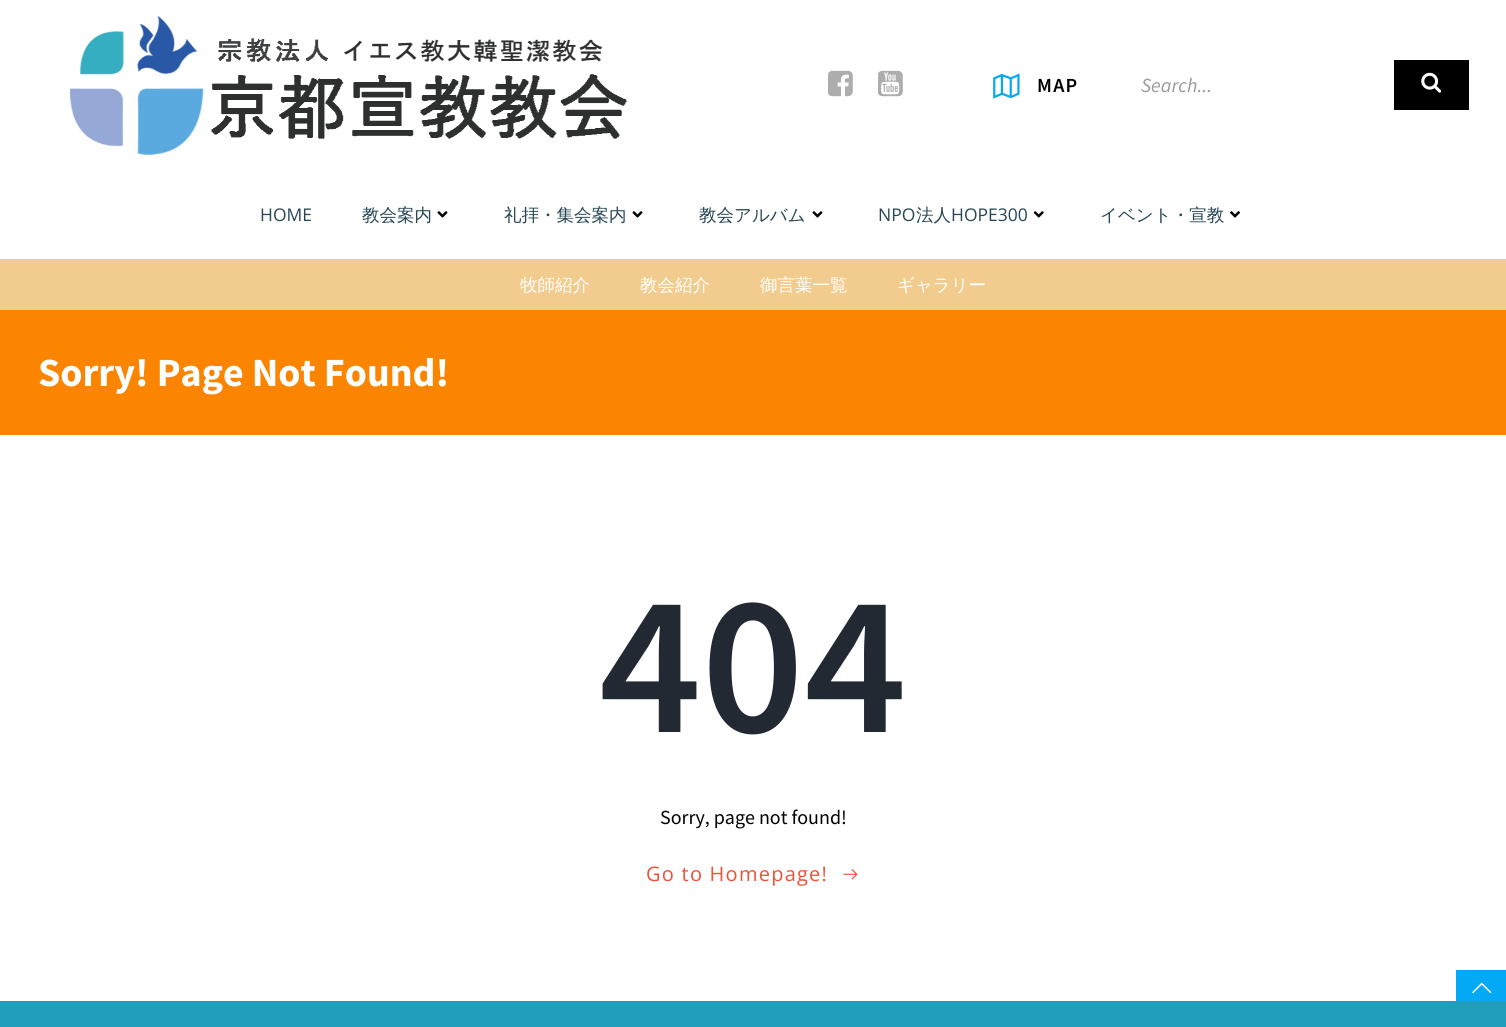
#include <cairo.h>
#include <math.h>
#include <stddef.h>

static cairo_t *ctx;

static void use_color(int r, int g, int b) {
    cairo_set_source_rgb(ctx, r / 255.0, g / 255.0, b / 255.0);
}

static void spaced_text(double x, double y, const char *s, double letter, double word) {
    cairo_move_to(ctx, x, y);
    while (*s) {
        char ch[5] = {0};
        int n = 0;
        do ch[n++] = *s++; while ((*s & 0xC0) == 0x80);
        cairo_show_text(ctx, ch);
        cairo_rel_move_to(ctx, letter + word * (*ch == ' '), 0);
    }
}

static void picture(const char *path, double x, double y, double w, double h) {
    cairo_surface_t *image = cairo_image_surface_create_from_png(path);
    cairo_save(ctx);
    cairo_set_source_surface(ctx, image, x, y);
    cairo_rectangle(ctx, x, y, w, h);
    cairo_fill(ctx);
    cairo_restore(ctx);
    cairo_surface_destroy(image);
}

int main(void) {
    cairo_surface_t *surface = cairo_image_surface_create(CAIRO_FORMAT_RGB24, 1506, 1027);
    ctx = cairo_create(surface);
    cairo_font_options_t *options = cairo_font_options_create();
    cairo_font_options_set_hint_metrics(options, CAIRO_HINT_METRICS_OFF);
    cairo_font_options_set_hint_style(options, CAIRO_HINT_STYLE_NONE);
    cairo_set_font_options(ctx, options);
    cairo_set_miter_limit(ctx, 4);
    use_color(255, 255, 255);
    cairo_paint(ctx);
    picture("img1.png", 70, 16, 557, 139);
    picture("img2.png", 828, 70, 25, 27);
    picture("img3.png", 878, 70, 25, 27);
    picture("img4.png", 993, 73, 27, 26);
    cairo_select_font_face(ctx, "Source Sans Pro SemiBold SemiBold", CAIRO_FONT_SLANT_NORMAL, CAIRO_FONT_WEIGHT_NORMAL);
    cairo_set_font_size(ctx, 20);
    use_color(0, 0, 0);
    spaced_text(1037, 92, "MAP", 1.25, 0);
    cairo_select_font_face(ctx, "Source Sans Pro", CAIRO_FONT_SLANT_ITALIC, CAIRO_FONT_WEIGHT_NORMAL);
    use_color(153, 153, 153);
    cairo_move_to(ctx, 1141, 92);
    cairo_show_text(ctx, "Search...");
    use_color(0, 0, 0);
    cairo_rectangle(ctx, 1394, 60, 75, 50);
    cairo_fill(ctx);
    picture("img5.png", 1421, 72, 20, 21);
    cairo_select_font_face(ctx, "Open Sans", CAIRO_FONT_SLANT_NORMAL, CAIRO_FONT_WEIGHT_NORMAL);
    cairo_set_font_size(ctx, 17.5);
    use_color(38, 70, 83);
    cairo_move_to(ctx, 260, 221);
    cairo_show_text(ctx, "HOME");
    cairo_select_font_face(ctx, "WenQuanYi Zen Hei Medium", CAIRO_FONT_SLANT_NORMAL, CAIRO_FONT_WEIGHT_NORMAL);
    cairo_move_to(ctx, 362, 221);
    cairo_show_text(ctx, "教会案内");
    picture("img6.png", 437, 211, 11, 7);
    cairo_move_to(ctx, 504, 221);
    cairo_show_text(ctx, "礼拝・集会案内");
    picture("img6.png", 632, 211, 11, 7);
    cairo_move_to(ctx, 699, 221);
    cairo_show_text(ctx, "教会アルバム");
    picture("img6.png", 812, 211, 11, 7);
    cairo_select_font_face(ctx, "Open Sans", CAIRO_FONT_SLANT_NORMAL, CAIRO_FONT_WEIGHT_NORMAL);
    cairo_move_to(ctx, 878, 221);
    cairo_show_text(ctx, "NPO");
    cairo_select_font_face(ctx, "WenQuanYi Zen Hei Medium", CAIRO_FONT_SLANT_NORMAL, CAIRO_FONT_WEIGHT_NORMAL);
    cairo_move_to(ctx, 916, 221);
    cairo_show_text(ctx, "法人");
    cairo_select_font_face(ctx, "Open Sans", CAIRO_FONT_SLANT_NORMAL, CAIRO_FONT_WEIGHT_NORMAL);
    cairo_move_to(ctx, 951, 221);
    cairo_show_text(ctx, "HOPE300");
    picture("img7.png", 1033, 211, 11, 7);
    cairo_select_font_face(ctx, "WenQuanYi Zen Hei Medium", CAIRO_FONT_SLANT_NORMAL, CAIRO_FONT_WEIGHT_NORMAL);
    cairo_move_to(ctx, 1100, 221);
    cairo_show_text(ctx, "イベント・宣教");
    picture("img8.png", 1230, 211, 10, 7);
    use_color(251, 133, 0);
    cairo_rectangle(ctx, 0, 310, 1506, 125);
    cairo_fill(ctx);
    use_color(242, 204, 143);
    cairo_rectangle(ctx, 0, 259, 1506, 51);
    cairo_fill(ctx);
    use_color(255, 255, 255);
    cairo_move_to(ctx, 520, 291);
    cairo_show_text(ctx, "牧師紹介");
    cairo_move_to(ctx, 640, 291);
    cairo_show_text(ctx, "教会紹介");
    cairo_move_to(ctx, 760, 291);
    cairo_show_text(ctx, "御言葉一覧");
    cairo_move_to(ctx, 897, 291);
    cairo_show_text(ctx, "ギャラリー");
    cairo_select_font_face(ctx, "Source Sans Pro", CAIRO_FONT_SLANT_NORMAL, CAIRO_FONT_WEIGHT_BOLD);
    cairo_set_font_size(ctx, 40);
    cairo_move_to(ctx, 38, 386);
    cairo_show_text(ctx, "Sorry! Page Not Found!");
    cairo_select_font_face(ctx, "Source Sans Pro SemiBold SemiBold", CAIRO_FONT_SLANT_NORMAL, CAIRO_FONT_WEIGHT_NORMAL);
    cairo_set_font_size(ctx, 200);
    use_color(34, 41, 51);
    cairo_move_to(ctx, 599, 732);
    cairo_show_text(ctx, "404");
    cairo_select_font_face(ctx, "Source Sans Pro", CAIRO_FONT_SLANT_NORMAL, CAIRO_FONT_WEIGHT_NORMAL);
    cairo_set_font_size(ctx, 20);
    use_color(0, 0, 0);
    cairo_move_to(ctx, 660, 824);
    cairo_show_text(ctx, "Sorry, page not found!");
    cairo_select_font_face(ctx, "Open Sans", CAIRO_FONT_SLANT_NORMAL, CAIRO_FONT_WEIGHT_NORMAL);
    use_color(236, 82, 55);
    spaced_text(646, 881, "Go to Homepage!", 1.25, 0);
    picture("img9.png", 843, 869, 15, 11);
    use_color(3, 169, 244);
    cairo_rectangle(ctx, 1456, 970, 50, 31);
    cairo_fill(ctx);
    picture("img10.png", 1472, 982, 20, 12);
    use_color(33, 158, 188);
    cairo_rectangle(ctx, 0, 1001, 1506, 26);
    cairo_fill(ctx);
    cairo_surface_write_to_png(surface, "result.png");
    cairo_font_options_destroy(options);
    cairo_destroy(ctx);
    cairo_surface_destroy(surface);
    return 0;
}
